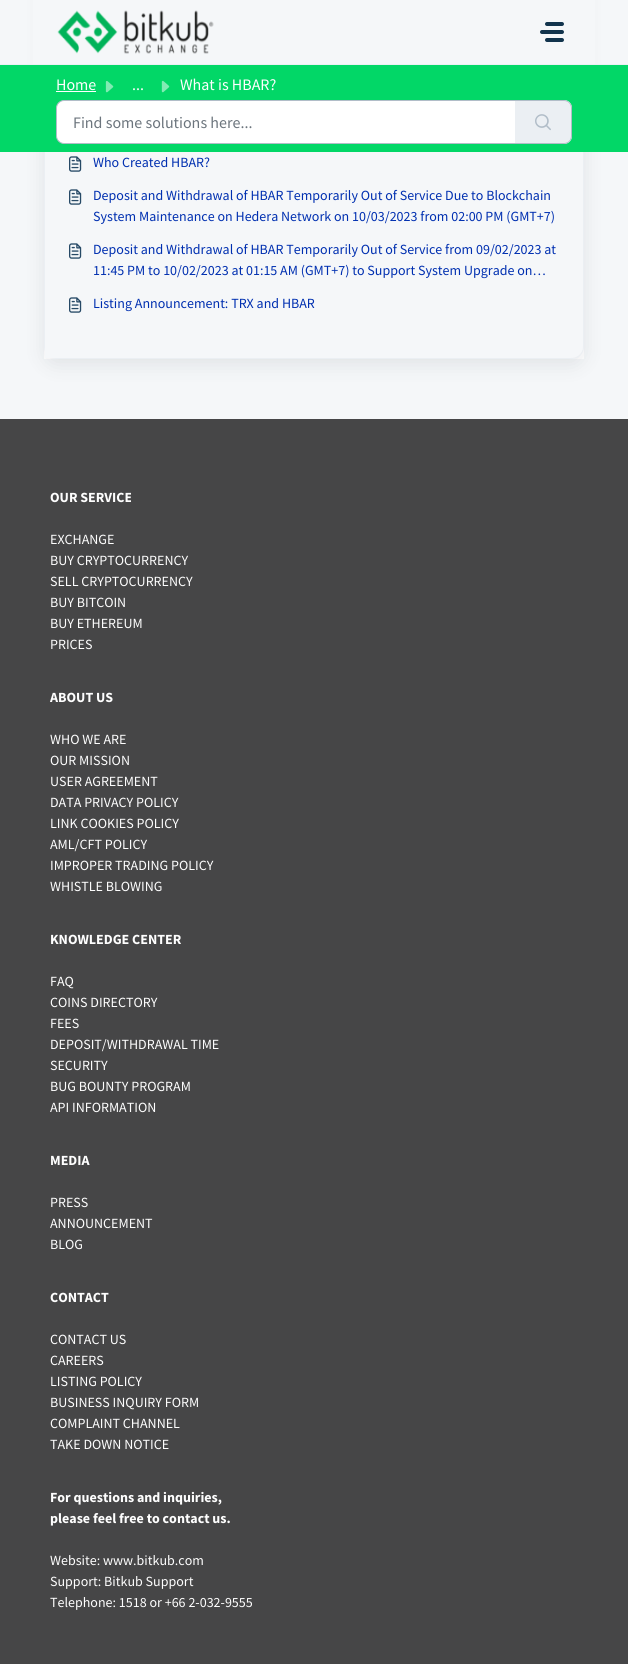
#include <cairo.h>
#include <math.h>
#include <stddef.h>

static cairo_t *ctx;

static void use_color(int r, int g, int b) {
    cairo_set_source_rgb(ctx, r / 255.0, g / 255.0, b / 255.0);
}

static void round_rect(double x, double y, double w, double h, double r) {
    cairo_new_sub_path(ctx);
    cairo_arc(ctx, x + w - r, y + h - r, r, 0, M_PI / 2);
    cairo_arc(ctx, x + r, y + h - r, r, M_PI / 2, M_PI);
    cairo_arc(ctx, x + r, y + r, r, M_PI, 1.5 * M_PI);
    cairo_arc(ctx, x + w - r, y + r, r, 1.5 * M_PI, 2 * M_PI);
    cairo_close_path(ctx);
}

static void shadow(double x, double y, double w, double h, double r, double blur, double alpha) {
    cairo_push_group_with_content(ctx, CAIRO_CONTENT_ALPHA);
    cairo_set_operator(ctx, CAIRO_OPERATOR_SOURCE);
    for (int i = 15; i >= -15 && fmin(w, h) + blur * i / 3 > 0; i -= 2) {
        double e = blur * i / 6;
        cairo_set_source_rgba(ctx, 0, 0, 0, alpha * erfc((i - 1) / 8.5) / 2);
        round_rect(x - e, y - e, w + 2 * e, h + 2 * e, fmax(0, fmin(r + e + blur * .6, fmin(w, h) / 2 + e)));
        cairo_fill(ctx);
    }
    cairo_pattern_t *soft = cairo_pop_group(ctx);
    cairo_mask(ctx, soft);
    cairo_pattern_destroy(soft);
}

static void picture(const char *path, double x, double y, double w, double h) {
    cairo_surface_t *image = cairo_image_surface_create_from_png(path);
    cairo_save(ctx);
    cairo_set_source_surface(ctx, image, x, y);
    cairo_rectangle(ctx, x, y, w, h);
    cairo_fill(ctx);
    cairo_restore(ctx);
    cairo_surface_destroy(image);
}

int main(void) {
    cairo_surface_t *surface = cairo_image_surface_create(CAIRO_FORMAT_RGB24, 628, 1664);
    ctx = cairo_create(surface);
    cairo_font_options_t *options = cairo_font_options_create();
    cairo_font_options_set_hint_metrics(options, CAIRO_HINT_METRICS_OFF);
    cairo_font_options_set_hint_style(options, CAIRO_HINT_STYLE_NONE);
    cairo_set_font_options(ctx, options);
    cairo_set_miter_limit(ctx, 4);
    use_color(245, 247, 249);
    cairo_paint(ctx);
    use_color(255, 255, 255);
    cairo_rectangle(ctx, 44, 346, 540, 13);
    cairo_fill(ctx);
    use_color(39, 49, 58);
    shadow(44, -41, 540, 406, 12, 9.5, 0.1);
    round_rect(44.5, -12.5, 539, 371, 11.5);
    use_color(235, 239, 243);
    cairo_set_line_width(ctx, 1);
    cairo_stroke(ctx);
    use_color(245, 247, 249);
    cairo_new_path(ctx);
    cairo_move_to(ctx, 45, -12);
    cairo_line_to(ctx, 571, -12);
    cairo_curve_to(ctx, 577.5, -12, 583, -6.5, 583, 0);
    cairo_line_to(ctx, 583, 346);
    cairo_curve_to(ctx, 583, 352.5, 577.5, 358, 571, 358);
    cairo_line_to(ctx, 45, 358);
    cairo_close_path(ctx);
    cairo_fill(ctx);
    cairo_rectangle(ctx, 33, 0, 562, 64);
    cairo_fill(ctx);
    use_color(235, 239, 243);
    cairo_rectangle(ctx, 0, 64, 628, 1);
    cairo_fill(ctx);
    picture("img1.png", 57, 10, 157, 44);
    use_color(18, 52, 77);
    round_rect(545, 22, 19, 4, 2);
    cairo_fill(ctx);
    round_rect(540, 30, 24, 4, 2);
    cairo_fill(ctx);
    round_rect(545, 38, 19, 4, 2);
    cairo_fill(ctx);
    use_color(2, 215, 103);
    cairo_rectangle(ctx, 0, 65, 628, 87);
    cairo_fill(ctx);
    cairo_select_font_face(ctx, "Source Sans Pro", CAIRO_FONT_SLANT_NORMAL, CAIRO_FONT_WEIGHT_NORMAL);
    cairo_set_font_size(ctx, 16);
    use_color(254, 254, 254);
    cairo_move_to(ctx, 56, 90);
    cairo_show_text(ctx, "Home");
    use_color(255, 255, 255);
    cairo_rectangle(ctx, 56, 91, 40, 1);
    cairo_fill(ctx);
    picture("img2.png", 105, 81, 9, 12);
    use_color(254, 254, 254);
    cairo_move_to(ctx, 132, 90);
    cairo_show_text(ctx, "...");
    picture("img3.png", 161, 80, 9, 13);
    cairo_move_to(ctx, 180, 90);
    cairo_show_text(ctx, "What is HBAR?");
    use_color(255, 255, 255);
    cairo_new_path(ctx);
    cairo_move_to(ctx, 64, 100.5);
    cairo_line_to(ctx, 515.5, 100.5);
    cairo_line_to(ctx, 515.5, 143.5);
    cairo_line_to(ctx, 64, 143.5);
    cairo_curve_to(ctx, 60, 143.5, 56.5, 140, 56.5, 136);
    cairo_line_to(ctx, 56.5, 108);
    cairo_curve_to(ctx, 56.5, 104, 60, 100.5, 64, 100.5);
    cairo_close_path(ctx);
    cairo_fill_preserve(ctx);
    use_color(177, 189, 200);
    cairo_stroke(ctx);
    use_color(108, 117, 125);
    cairo_move_to(ctx, 73, 128);
    cairo_show_text(ctx, "Find some solutions here...");
    use_color(235, 239, 243);
    cairo_new_path(ctx);
    cairo_move_to(ctx, 515, 100);
    cairo_line_to(ctx, 564, 100);
    cairo_curve_to(ctx, 568.5, 100, 572, 103.5, 572, 108);
    cairo_line_to(ctx, 572, 136);
    cairo_curve_to(ctx, 572, 140.5, 568.5, 144, 564, 144);
    cairo_line_to(ctx, 515, 144);
    cairo_close_path(ctx);
    cairo_fill(ctx);
    use_color(177, 189, 200);
    cairo_set_fill_rule(ctx, CAIRO_FILL_RULE_EVEN_ODD);
    cairo_new_path(ctx);
    cairo_move_to(ctx, 515, 100);
    cairo_line_to(ctx, 564, 100);
    cairo_curve_to(ctx, 568, 100, 572, 104, 572, 108);
    cairo_line_to(ctx, 572, 136);
    cairo_curve_to(ctx, 572, 140, 568, 144, 564, 144);
    cairo_line_to(ctx, 515, 144);
    cairo_close_path(ctx);
    cairo_move_to(ctx, 515, 101);
    cairo_line_to(ctx, 564, 101);
    cairo_curve_to(ctx, 568, 101, 571, 104, 571, 108);
    cairo_line_to(ctx, 571, 136);
    cairo_curve_to(ctx, 571, 140, 568, 143, 564, 143);
    cairo_line_to(ctx, 515, 143);
    cairo_close_path(ctx);
    cairo_fill(ctx);
    picture("img4.png", 535, 114, 16, 17);
    picture("img5.png", 69, 156, 13, 16);
    cairo_set_font_size(ctx, 14);
    use_color(0, 47, 176);
    cairo_move_to(ctx, 93, 167);
    cairo_show_text(ctx, "Who Created HBAR?");
    picture("img5.png", 69, 189, 13, 16);
    cairo_move_to(ctx, 93, 200);
    cairo_show_text(ctx, "Deposit and Withdrawal of HBAR Temporarily Out of Service Due to Blockchain");
    cairo_move_to(ctx, 93, 221);
    cairo_show_text(ctx, "System Maintenance on Hedera Network on 10/03/2023 from 02:00 PM (GMT+7)");
    picture("img5.png", 69, 243, 13, 16);
    cairo_move_to(ctx, 93, 254);
    cairo_show_text(ctx, "Deposit and Withdrawal of HBAR Temporarily Out of Service from 09/02/2023 at");
    cairo_move_to(ctx, 93, 275);
    cairo_show_text(ctx, "11:45 PM to 10/02/2023 at 01:15 AM (GMT+7) to Support System Upgrade on…");
    picture("img5.png", 69, 297, 13, 16);
    cairo_move_to(ctx, 93, 308);
    cairo_show_text(ctx, "Listing Announcement: TRX and HBAR");
    use_color(70, 70, 71);
    cairo_rectangle(ctx, 0, 419, 628, 1245);
    cairo_fill(ctx);
    cairo_select_font_face(ctx, "Source Sans Pro", CAIRO_FONT_SLANT_NORMAL, CAIRO_FONT_WEIGHT_BOLD);
    use_color(254, 254, 254);
    cairo_move_to(ctx, 50, 502);
    cairo_show_text(ctx, "OUR SERVICE");
    cairo_select_font_face(ctx, "Source Sans Pro", CAIRO_FONT_SLANT_NORMAL, CAIRO_FONT_WEIGHT_NORMAL);
    cairo_move_to(ctx, 50, 544);
    cairo_show_text(ctx, "EXCHANGE");
    cairo_move_to(ctx, 50, 565);
    cairo_show_text(ctx, "BUY CRYPTOCURRENCY");
    cairo_move_to(ctx, 50, 586);
    cairo_show_text(ctx, "SELL CRYPTOCURRENCY");
    cairo_move_to(ctx, 50, 607);
    cairo_show_text(ctx, "BUY BITCOIN");
    cairo_move_to(ctx, 50, 628);
    cairo_show_text(ctx, "BUY ETHEREUM");
    cairo_move_to(ctx, 50, 649);
    cairo_show_text(ctx, "PRICES");
    cairo_select_font_face(ctx, "Source Sans Pro", CAIRO_FONT_SLANT_NORMAL, CAIRO_FONT_WEIGHT_BOLD);
    cairo_move_to(ctx, 50, 702);
    cairo_show_text(ctx, "ABOUT US");
    cairo_select_font_face(ctx, "Source Sans Pro", CAIRO_FONT_SLANT_NORMAL, CAIRO_FONT_WEIGHT_NORMAL);
    cairo_move_to(ctx, 50, 744);
    cairo_show_text(ctx, "WHO WE ARE");
    cairo_move_to(ctx, 50, 765);
    cairo_show_text(ctx, "OUR MISSION");
    cairo_move_to(ctx, 50, 786);
    cairo_show_text(ctx, "USER AGREEMENT");
    cairo_move_to(ctx, 50, 807);
    cairo_show_text(ctx, "DATA PRIVACY POLICY");
    cairo_move_to(ctx, 50, 828);
    cairo_show_text(ctx, "LINK COOKIES POLICY");
    cairo_move_to(ctx, 50, 849);
    cairo_show_text(ctx, "AML/CFT POLICY");
    cairo_move_to(ctx, 50, 870);
    cairo_show_text(ctx, "IMPROPER TRADING POLICY");
    cairo_move_to(ctx, 50, 891);
    cairo_show_text(ctx, "WHISTLE BLOWING");
    cairo_select_font_face(ctx, "Source Sans Pro", CAIRO_FONT_SLANT_NORMAL, CAIRO_FONT_WEIGHT_BOLD);
    cairo_move_to(ctx, 50, 944);
    cairo_show_text(ctx, "KNOWLEDGE CENTER");
    cairo_select_font_face(ctx, "Source Sans Pro", CAIRO_FONT_SLANT_NORMAL, CAIRO_FONT_WEIGHT_NORMAL);
    cairo_move_to(ctx, 50, 986);
    cairo_show_text(ctx, "FAQ");
    cairo_move_to(ctx, 50, 1007);
    cairo_show_text(ctx, "COINS DIRECTORY");
    cairo_move_to(ctx, 50, 1028);
    cairo_show_text(ctx, "FEES");
    cairo_move_to(ctx, 50, 1049);
    cairo_show_text(ctx, "DEPOSIT/WITHDRAWAL TIME");
    cairo_move_to(ctx, 50, 1070);
    cairo_show_text(ctx, "SECURITY");
    cairo_move_to(ctx, 50, 1091);
    cairo_show_text(ctx, "BUG BOUNTY PROGRAM");
    cairo_move_to(ctx, 50, 1112);
    cairo_show_text(ctx, "API INFORMATION");
    cairo_select_font_face(ctx, "Source Sans Pro", CAIRO_FONT_SLANT_NORMAL, CAIRO_FONT_WEIGHT_BOLD);
    cairo_move_to(ctx, 50, 1165);
    cairo_show_text(ctx, "MEDIA");
    cairo_select_font_face(ctx, "Source Sans Pro", CAIRO_FONT_SLANT_NORMAL, CAIRO_FONT_WEIGHT_NORMAL);
    cairo_move_to(ctx, 50, 1207);
    cairo_show_text(ctx, "PRESS");
    cairo_move_to(ctx, 50, 1228);
    cairo_show_text(ctx, "ANNOUNCEMENT");
    cairo_move_to(ctx, 50, 1249);
    cairo_show_text(ctx, "BLOG");
    cairo_select_font_face(ctx, "Source Sans Pro", CAIRO_FONT_SLANT_NORMAL, CAIRO_FONT_WEIGHT_BOLD);
    cairo_move_to(ctx, 50, 1302);
    cairo_show_text(ctx, "CONTACT");
    cairo_select_font_face(ctx, "Source Sans Pro", CAIRO_FONT_SLANT_NORMAL, CAIRO_FONT_WEIGHT_NORMAL);
    cairo_move_to(ctx, 50, 1344);
    cairo_show_text(ctx, "CONTACT US");
    cairo_move_to(ctx, 50, 1365);
    cairo_show_text(ctx, "CAREERS");
    cairo_move_to(ctx, 50, 1386);
    cairo_show_text(ctx, "LISTING POLICY");
    cairo_move_to(ctx, 50, 1407);
    cairo_show_text(ctx, "BUSINESS INQUIRY FORM");
    cairo_move_to(ctx, 50, 1428);
    cairo_show_text(ctx, "COMPLAINT CHANNEL");
    cairo_move_to(ctx, 50, 1449);
    cairo_show_text(ctx, "TAKE DOWN NOTICE");
    cairo_select_font_face(ctx, "Source Sans Pro", CAIRO_FONT_SLANT_NORMAL, CAIRO_FONT_WEIGHT_BOLD);
    cairo_move_to(ctx, 50, 1502);
    cairo_show_text(ctx, "For questions and inquiries,");
    cairo_move_to(ctx, 50, 1523);
    cairo_show_text(ctx, "please feel free to contact us.");
    cairo_select_font_face(ctx, "Source Sans Pro", CAIRO_FONT_SLANT_NORMAL, CAIRO_FONT_WEIGHT_NORMAL);
    cairo_move_to(ctx, 50, 1565);
    cairo_show_text(ctx, "Website: www.bitkub.com");
    cairo_move_to(ctx, 50, 1586);
    cairo_show_text(ctx, "Support: Bitkub Support");
    cairo_move_to(ctx, 50, 1607);
    cairo_show_text(ctx, "Telephone: 1518 or +66 2-032-9555");
    cairo_surface_write_to_png(surface, "result.png");
    cairo_font_options_destroy(options);
    cairo_destroy(ctx);
    cairo_surface_destroy(surface);
    return 0;
}
